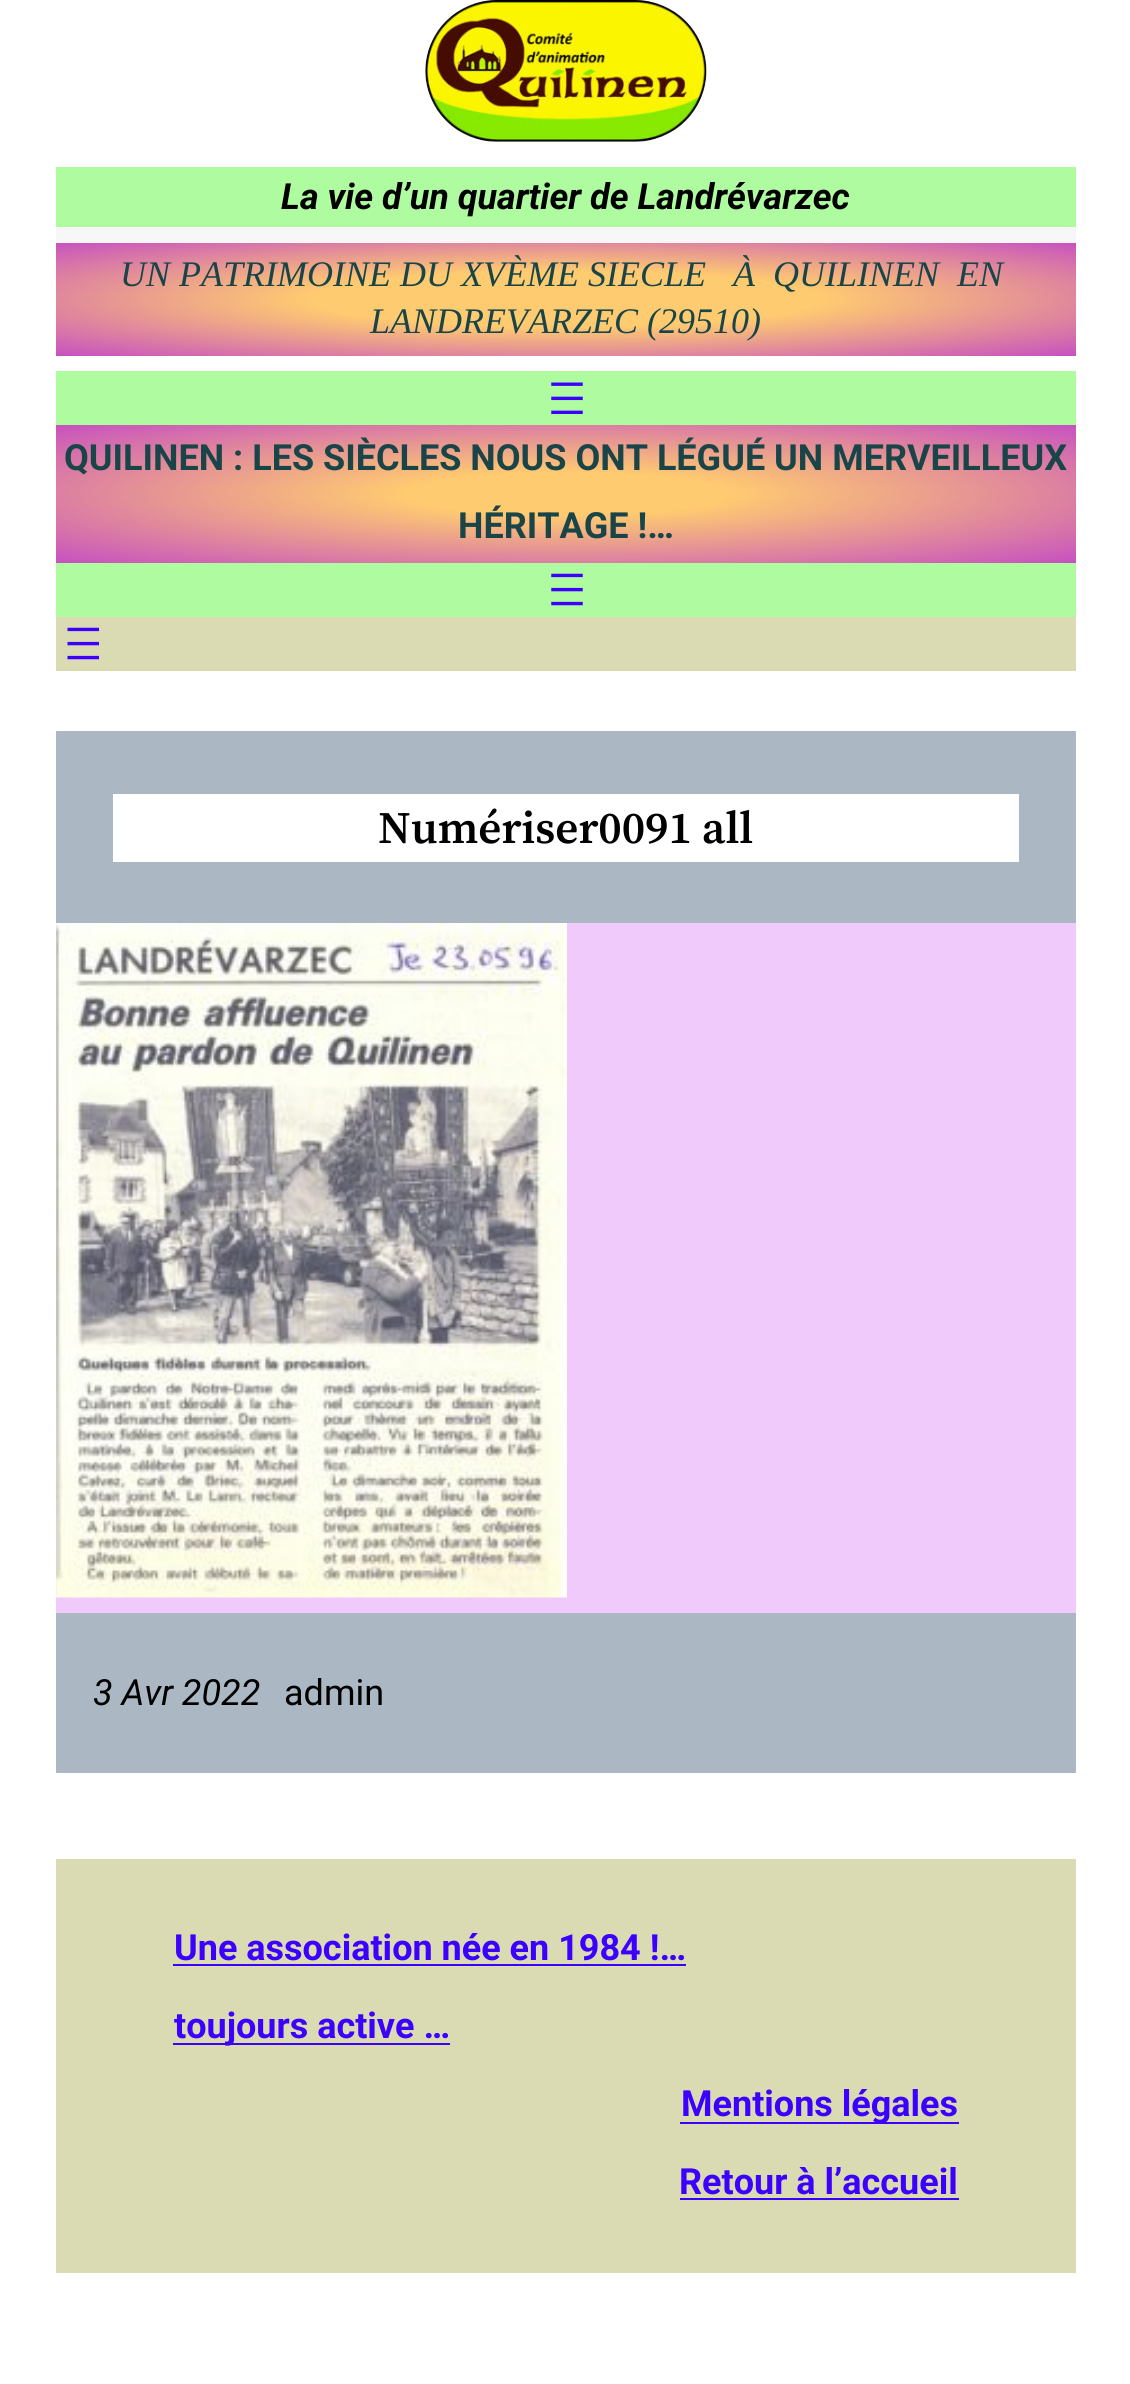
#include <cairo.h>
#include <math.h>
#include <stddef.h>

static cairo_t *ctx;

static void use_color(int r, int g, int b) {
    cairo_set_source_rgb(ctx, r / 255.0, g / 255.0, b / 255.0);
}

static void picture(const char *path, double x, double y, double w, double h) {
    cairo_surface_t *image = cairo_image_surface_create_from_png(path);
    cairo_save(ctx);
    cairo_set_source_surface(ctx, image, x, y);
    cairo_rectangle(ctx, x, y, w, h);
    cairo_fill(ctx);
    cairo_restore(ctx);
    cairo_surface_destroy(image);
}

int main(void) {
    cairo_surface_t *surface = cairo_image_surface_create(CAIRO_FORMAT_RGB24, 1130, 2384);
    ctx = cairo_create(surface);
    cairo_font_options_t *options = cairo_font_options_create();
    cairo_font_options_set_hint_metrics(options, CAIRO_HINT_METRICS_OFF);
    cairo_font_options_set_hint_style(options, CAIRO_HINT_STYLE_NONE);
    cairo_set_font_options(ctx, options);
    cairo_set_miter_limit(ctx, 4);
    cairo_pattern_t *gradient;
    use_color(255, 255, 255);
    cairo_paint(ctx);
    picture("img1.png", 425, 0, 282, 142);
    use_color(174, 252, 159);
    cairo_rectangle(ctx, 56, 167, 1020, 60);
    cairo_fill(ctx);
    cairo_select_font_face(ctx, "Roboto", CAIRO_FONT_SLANT_ITALIC, CAIRO_FONT_WEIGHT_BOLD);
    cairo_set_font_size(ctx, 36);
    use_color(0, 0, 0);
    cairo_move_to(ctx, 281, 209);
    cairo_show_text(ctx, "La vie d’un quartier de Landrévarzec");
    gradient = cairo_pattern_create_linear(566, 227, 566, 371);
    cairo_pattern_add_color_stop_rgba(gradient, 0, 0.965, 0.965, 0.965, 1);
    cairo_pattern_add_color_stop_rgba(gradient, 1, 1, 1, 1, 1);
    cairo_set_source(ctx, gradient);
    cairo_pattern_destroy(gradient);
    cairo_rectangle(ctx, 56, 227, 1020, 104);
    cairo_fill(ctx);
    gradient = cairo_pattern_create_radial(0, 0, 0, 0, 0, 1);
    cairo_pattern_set_matrix(gradient, &(cairo_matrix_t){1.0 / 721, 0, 0, 1.0 / 80, -1.0 * 566 / 721, -1.0 * 299 / 80});
    cairo_pattern_add_color_stop_rgba(gradient, 0.35, 1, 0.796, 0.439, 1);
    cairo_pattern_add_color_stop_rgba(gradient, 1, 0.78, 0.318, 0.753, 1);
    cairo_pattern_add_color_stop_rgba(gradient, 1, 0.255, 0.345, 0.816, 1);
    cairo_set_source(ctx, gradient);
    cairo_pattern_destroy(gradient);
    cairo_rectangle(ctx, 56, 243, 1020, 113);
    cairo_fill(ctx);
    cairo_select_font_face(ctx, "Liberation Serif", CAIRO_FONT_SLANT_ITALIC, CAIRO_FONT_WEIGHT_NORMAL);
    use_color(26, 69, 72);
    cairo_move_to(ctx, 120, 286);
    cairo_show_text(ctx, "UN PATRIMOINE DU XVÈME SIECLE   À  QUILINEN  EN");
    cairo_move_to(ctx, 370, 333);
    cairo_show_text(ctx, "LANDREVARZEC (29510)");
    use_color(174, 252, 159);
    cairo_rectangle(ctx, 56, 371, 1020, 54);
    cairo_fill(ctx);
    picture("img2.png", 551, 382, 32, 32);
    gradient = cairo_pattern_create_radial(0, 0, 0, 0, 0, 1);
    cairo_pattern_set_matrix(gradient, &(cairo_matrix_t){1.0 / 721, 0, 0, 1.0 / 97, -1.0 * 566 / 721, -1.0 * 494 / 97});
    cairo_pattern_add_color_stop_rgba(gradient, 0.22, 1, 0.796, 0.439, 1);
    cairo_pattern_add_color_stop_rgba(gradient, 1, 0.78, 0.318, 0.753, 1);
    cairo_pattern_add_color_stop_rgba(gradient, 1, 0.255, 0.345, 0.816, 1);
    cairo_set_source(ctx, gradient);
    cairo_pattern_destroy(gradient);
    cairo_rectangle(ctx, 56, 425, 1020, 138);
    cairo_fill(ctx);
    cairo_select_font_face(ctx, "Roboto", CAIRO_FONT_SLANT_NORMAL, CAIRO_FONT_WEIGHT_BOLD);
    use_color(26, 69, 72);
    cairo_move_to(ctx, 64, 470);
    cairo_show_text(ctx, "QUILINEN : LES SIÈCLES NOUS ONT LÉGUÉ UN MERVEILLEUX");
    cairo_move_to(ctx, 458, 538);
    cairo_show_text(ctx, "HÉRITAGE !…");
    use_color(174, 252, 159);
    cairo_rectangle(ctx, 56, 563, 1020, 54);
    cairo_fill(ctx);
    picture("img3.png", 551, 573, 32, 33);
    use_color(219, 219, 179);
    cairo_rectangle(ctx, 56, 617, 1020, 54);
    cairo_fill(ctx);
    picture("img4.png", 67, 627, 32, 33);
    use_color(171, 184, 195);
    cairo_rectangle(ctx, 56, 731, 1020, 192);
    cairo_fill(ctx);
    use_color(255, 255, 255);
    cairo_rectangle(ctx, 113, 794, 906, 68);
    cairo_fill(ctx);
    cairo_select_font_face(ctx, "Source Serif 4 SemiBold", CAIRO_FONT_SLANT_NORMAL, CAIRO_FONT_WEIGHT_NORMAL);
    cairo_set_font_size(ctx, 45);
    use_color(0, 0, 0);
    cairo_move_to(ctx, 378, 843);
    cairo_show_text(ctx, "Numériser0091 all");
    use_color(241, 202, 252);
    cairo_rectangle(ctx, 56, 923, 1020, 690);
    cairo_fill(ctx);
    picture("img5.png", 56, 923, 511, 675);
    use_color(171, 184, 195);
    cairo_rectangle(ctx, 56, 1613, 1020, 160);
    cairo_fill(ctx);
    cairo_select_font_face(ctx, "Roboto", CAIRO_FONT_SLANT_ITALIC, CAIRO_FONT_WEIGHT_NORMAL);
    cairo_set_font_size(ctx, 36);
    use_color(0, 0, 0);
    cairo_move_to(ctx, 93, 1705);
    cairo_show_text(ctx, "3 Avr 2022");
    cairo_select_font_face(ctx, "Roboto", CAIRO_FONT_SLANT_NORMAL, CAIRO_FONT_WEIGHT_NORMAL);
    cairo_move_to(ctx, 284, 1705);
    cairo_show_text(ctx, "admin");
    use_color(219, 219, 179);
    cairo_rectangle(ctx, 56, 1859, 1020, 414);
    cairo_fill(ctx);
    cairo_select_font_face(ctx, "Roboto", CAIRO_FONT_SLANT_NORMAL, CAIRO_FONT_WEIGHT_BOLD);
    use_color(60, 0, 255);
    cairo_move_to(ctx, 174, 1960);
    cairo_show_text(ctx, "Une association née en 1984 !…");
    cairo_rectangle(ctx, 173, 1964, 513, 2);
    cairo_fill(ctx);
    cairo_rectangle(ctx, 173, 2043, 277, 2);
    cairo_fill(ctx);
    cairo_move_to(ctx, 174, 2038);
    cairo_show_text(ctx, "toujours active …");
    cairo_rectangle(ctx, 680, 2122, 279, 2);
    cairo_fill(ctx);
    cairo_move_to(ctx, 681, 2116);
    cairo_show_text(ctx, "Mentions légales");
    cairo_move_to(ctx, 679, 2194);
    cairo_show_text(ctx, "Retour à l’accueil");
    cairo_rectangle(ctx, 680, 2198, 279, 2);
    cairo_fill(ctx);
    cairo_surface_write_to_png(surface, "result.png");
    cairo_font_options_destroy(options);
    cairo_destroy(ctx);
    cairo_surface_destroy(surface);
    return 0;
}
